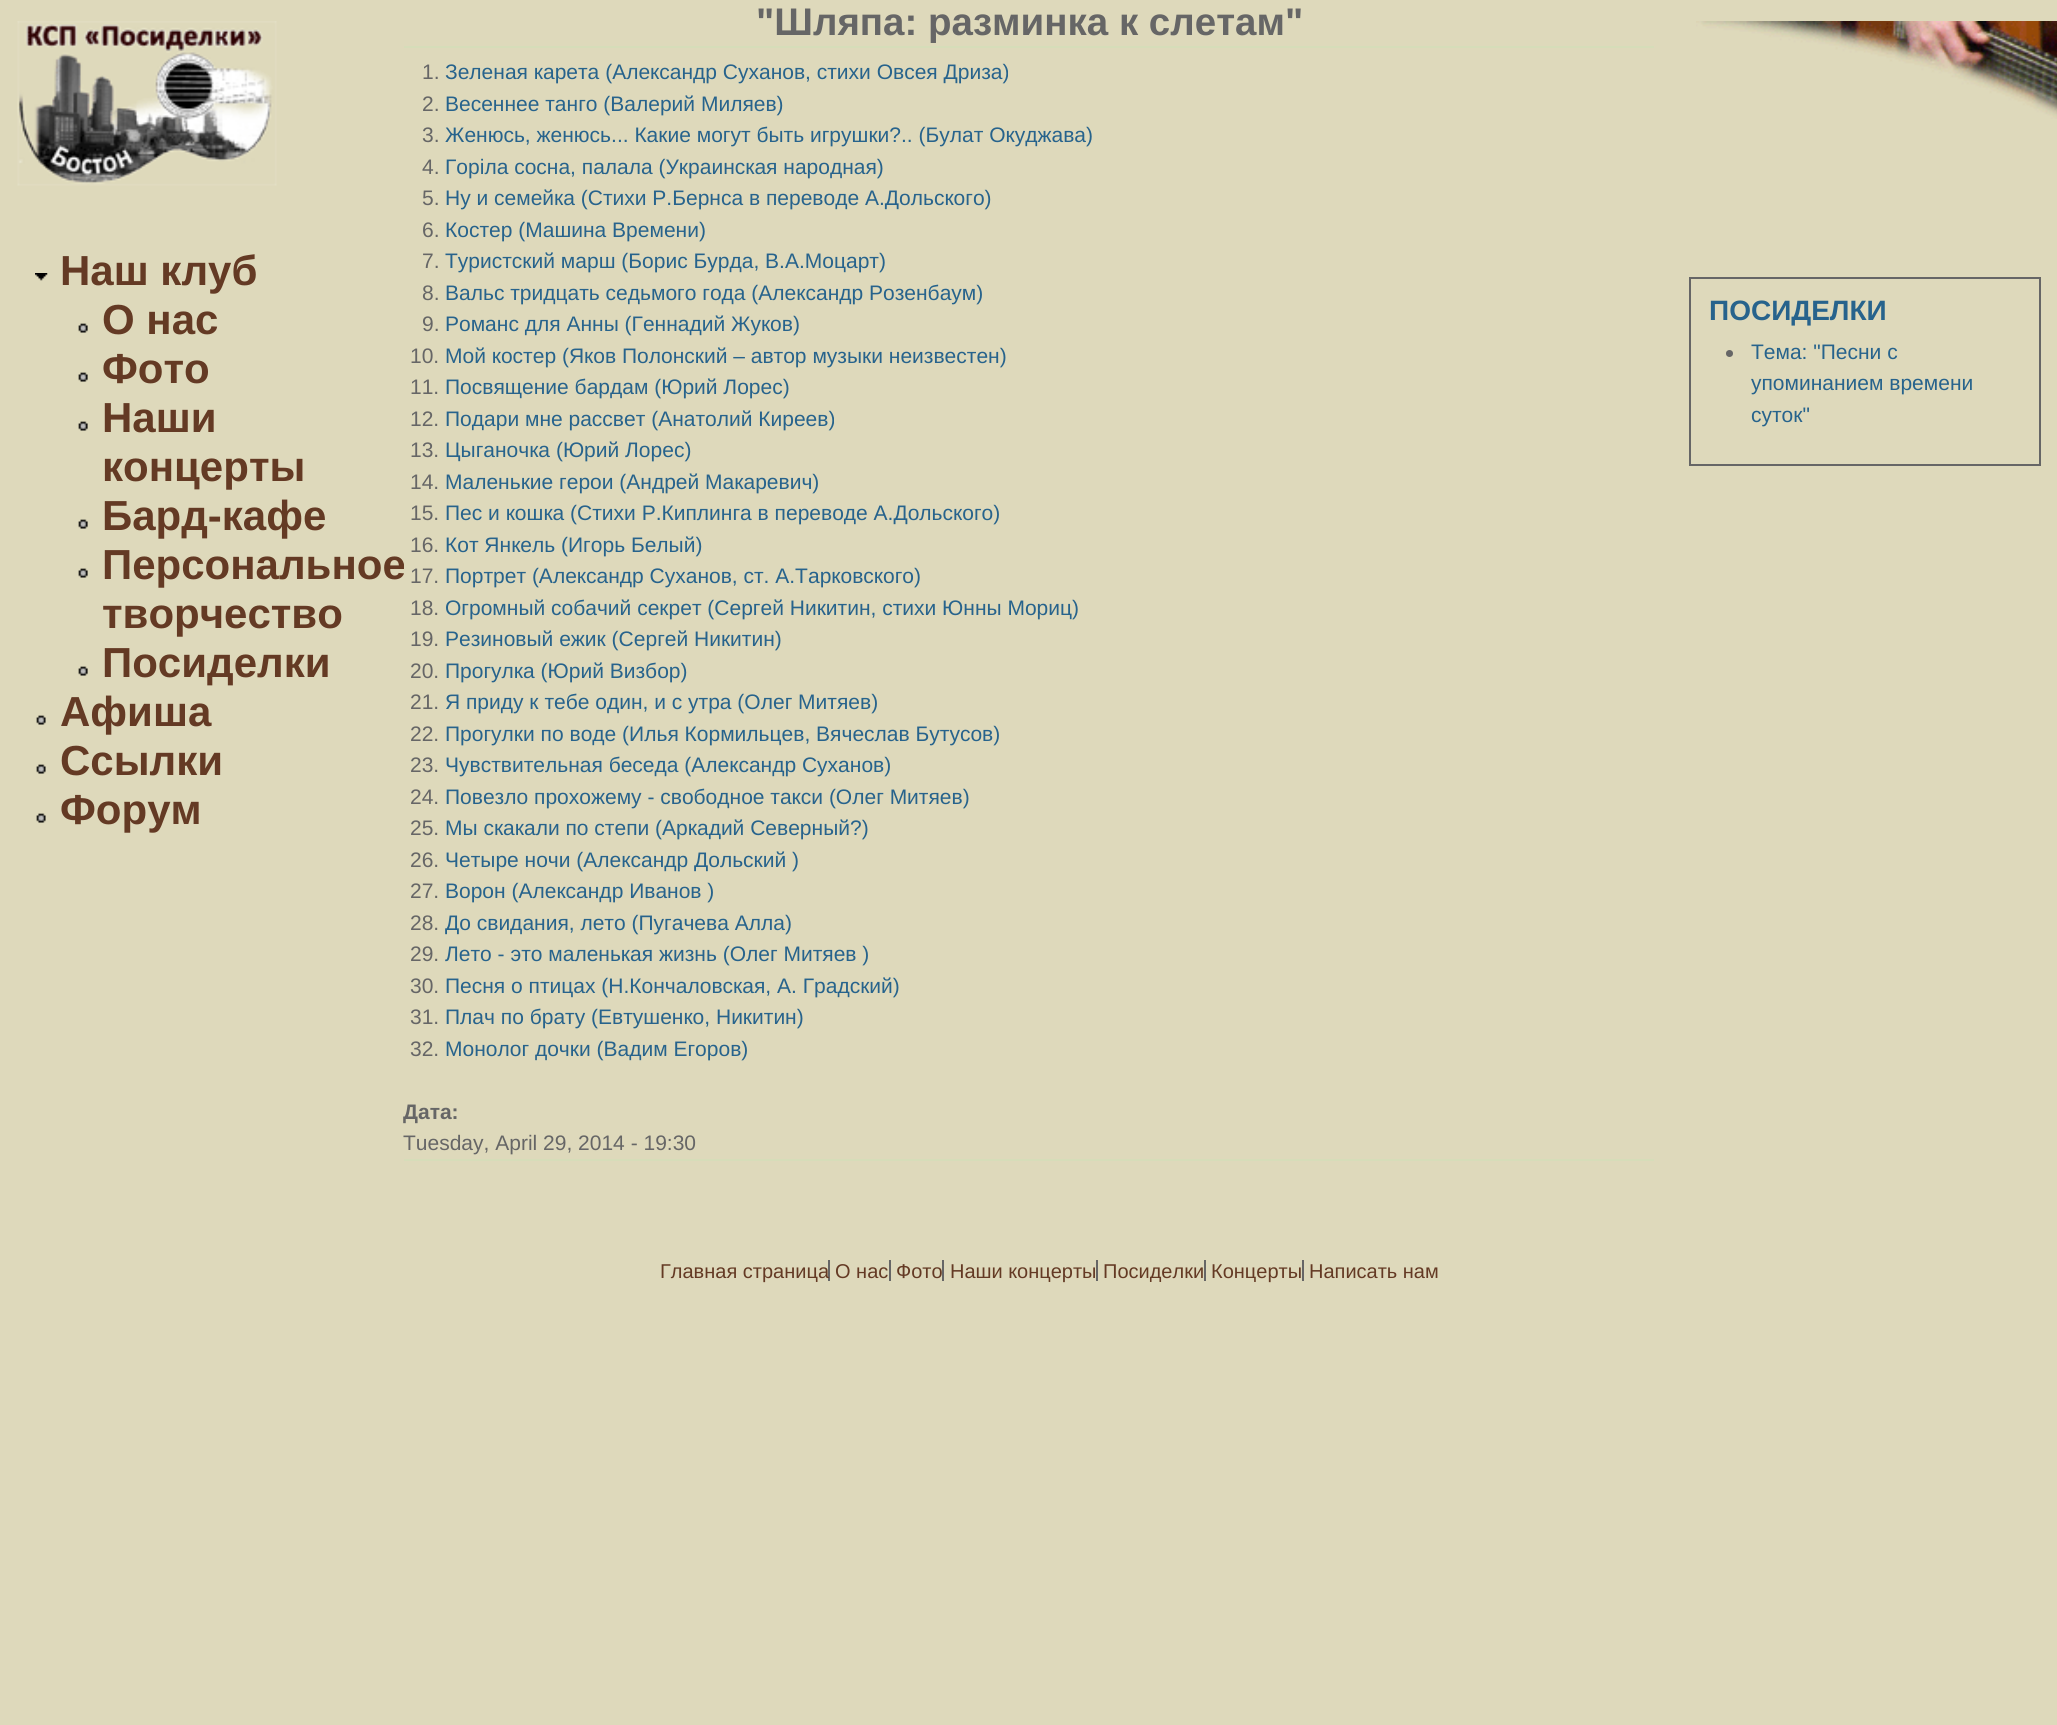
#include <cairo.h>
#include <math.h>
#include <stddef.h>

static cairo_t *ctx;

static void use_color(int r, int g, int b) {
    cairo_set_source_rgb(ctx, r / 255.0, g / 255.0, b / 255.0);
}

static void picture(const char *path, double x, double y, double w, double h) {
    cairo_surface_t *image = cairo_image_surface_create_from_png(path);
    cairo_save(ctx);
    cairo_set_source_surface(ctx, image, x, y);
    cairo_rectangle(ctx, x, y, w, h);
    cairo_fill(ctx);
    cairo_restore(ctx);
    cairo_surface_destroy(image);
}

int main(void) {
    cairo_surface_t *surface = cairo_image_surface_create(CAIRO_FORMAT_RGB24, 2057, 1725);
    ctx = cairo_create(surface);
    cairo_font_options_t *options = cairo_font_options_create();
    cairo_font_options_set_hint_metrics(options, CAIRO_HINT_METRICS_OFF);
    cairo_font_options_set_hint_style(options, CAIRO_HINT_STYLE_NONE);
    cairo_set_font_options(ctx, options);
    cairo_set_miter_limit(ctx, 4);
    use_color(222, 217, 187);
    cairo_paint(ctx);
    picture("img1.png", 17, 21, 260, 165);
    picture("img2.png", 35, 273, 13, 8);
    cairo_select_font_face(ctx, "Liberation Sans", CAIRO_FONT_SLANT_NORMAL, CAIRO_FONT_WEIGHT_BOLD);
    cairo_set_font_size(ctx, 42);
    use_color(100, 58, 36);
    cairo_move_to(ctx, 60, 285);
    cairo_show_text(ctx, "Наш клуб");
    picture("img3.png", 78, 323, 10, 10);
    cairo_move_to(ctx, 102, 334);
    cairo_show_text(ctx, "О нас");
    picture("img3.png", 78, 372, 10, 10);
    cairo_move_to(ctx, 102, 383);
    cairo_show_text(ctx, "Фото");
    picture("img3.png", 78, 421, 10, 10);
    cairo_move_to(ctx, 102, 432);
    cairo_show_text(ctx, "Наши");
    cairo_move_to(ctx, 102, 481);
    cairo_show_text(ctx, "концерты");
    picture("img3.png", 78, 519, 10, 10);
    cairo_move_to(ctx, 102, 530);
    cairo_show_text(ctx, "Бард-кафе");
    picture("img3.png", 78, 568, 10, 10);
    cairo_move_to(ctx, 102, 579);
    cairo_show_text(ctx, "Персональное");
    cairo_move_to(ctx, 102, 628);
    cairo_show_text(ctx, "творчество");
    picture("img3.png", 78, 666, 10, 10);
    cairo_move_to(ctx, 102, 677);
    cairo_show_text(ctx, "Посиделки");
    picture("img4.png", 36, 715, 10, 10);
    cairo_move_to(ctx, 60, 726);
    cairo_show_text(ctx, "Афиша");
    picture("img4.png", 36, 764, 10, 10);
    cairo_move_to(ctx, 60, 775);
    cairo_show_text(ctx, "Ссылки");
    picture("img4.png", 36, 813, 10, 10);
    cairo_move_to(ctx, 60, 824);
    cairo_show_text(ctx, "Форум");
    use_color(214, 221, 185);
    cairo_rectangle(ctx, 404, 46, 1250, 2);
    cairo_fill(ctx);
    cairo_set_font_size(ctx, 38.5);
    use_color(102, 102, 102);
    cairo_move_to(ctx, 756, 35);
    cairo_show_text(ctx, "\"Шляпа: разминка к слетам\"");
    use_color(214, 221, 185);
    cairo_rectangle(ctx, 404, 1159, 1250, 2);
    cairo_fill(ctx);
    cairo_select_font_face(ctx, "Liberation Sans", CAIRO_FONT_SLANT_NORMAL, CAIRO_FONT_WEIGHT_NORMAL);
    cairo_set_font_size(ctx, 21);
    use_color(102, 102, 102);
    cairo_move_to(ctx, 422, 79);
    cairo_show_text(ctx, "1.");
    use_color(39, 99, 140);
    cairo_move_to(ctx, 445, 79);
    cairo_show_text(ctx, "Зеленая карета (Александр Суханов, стихи Овсея Дриза)");
    use_color(102, 102, 102);
    cairo_move_to(ctx, 422, 111);
    cairo_show_text(ctx, "2.");
    use_color(39, 99, 140);
    cairo_move_to(ctx, 445, 111);
    cairo_show_text(ctx, "Весеннее танго (Валерий Миляев)");
    use_color(102, 102, 102);
    cairo_move_to(ctx, 422, 142);
    cairo_show_text(ctx, "3.");
    use_color(39, 99, 140);
    cairo_move_to(ctx, 445, 142);
    cairo_show_text(ctx, "Женюсь, женюсь... Какие могут быть игрушки?.. (Булат Окуджава)");
    use_color(102, 102, 102);
    cairo_move_to(ctx, 422, 174);
    cairo_show_text(ctx, "4.");
    use_color(39, 99, 140);
    cairo_move_to(ctx, 445, 174);
    cairo_show_text(ctx, "Горiла сосна, палала (Украинская народная)");
    use_color(102, 102, 102);
    cairo_move_to(ctx, 422, 205);
    cairo_show_text(ctx, "5.");
    use_color(39, 99, 140);
    cairo_move_to(ctx, 445, 205);
    cairo_show_text(ctx, "Ну и семейка (Стихи Р.Бернса в переводе А.Дольского)");
    use_color(102, 102, 102);
    cairo_move_to(ctx, 422, 237);
    cairo_show_text(ctx, "6.");
    use_color(39, 99, 140);
    cairo_move_to(ctx, 445, 237);
    cairo_show_text(ctx, "Костер (Машина Времени)");
    use_color(102, 102, 102);
    cairo_move_to(ctx, 422, 268);
    cairo_show_text(ctx, "7.");
    use_color(39, 99, 140);
    cairo_move_to(ctx, 445, 268);
    cairo_show_text(ctx, "Туристский марш (Борис Бурда, В.А.Моцарт)");
    use_color(102, 102, 102);
    cairo_move_to(ctx, 422, 300);
    cairo_show_text(ctx, "8.");
    use_color(39, 99, 140);
    cairo_move_to(ctx, 445, 300);
    cairo_show_text(ctx, "Вальс тридцать седьмого года (Александр Розенбаум)");
    use_color(102, 102, 102);
    cairo_move_to(ctx, 422, 331);
    cairo_show_text(ctx, "9.");
    use_color(39, 99, 140);
    cairo_move_to(ctx, 445, 331);
    cairo_show_text(ctx, "Романс для Анны (Геннадий Жуков)");
    use_color(102, 102, 102);
    cairo_move_to(ctx, 410, 363);
    cairo_show_text(ctx, "10.");
    use_color(39, 99, 140);
    cairo_move_to(ctx, 445, 363);
    cairo_show_text(ctx, "Мой костер (Яков Полонский – автор музыки неизвестен)");
    use_color(102, 102, 102);
    cairo_move_to(ctx, 410, 394);
    cairo_show_text(ctx, "11.");
    use_color(39, 99, 140);
    cairo_move_to(ctx, 445, 394);
    cairo_show_text(ctx, "Посвящение бардам (Юрий Лорес)");
    use_color(102, 102, 102);
    cairo_move_to(ctx, 410, 426);
    cairo_show_text(ctx, "12.");
    use_color(39, 99, 140);
    cairo_move_to(ctx, 445, 426);
    cairo_show_text(ctx, "Подари мне рассвет (Анатолий Киреев)");
    use_color(102, 102, 102);
    cairo_move_to(ctx, 410, 457);
    cairo_show_text(ctx, "13.");
    use_color(39, 99, 140);
    cairo_move_to(ctx, 445, 457);
    cairo_show_text(ctx, "Цыганочка (Юрий Лорес)");
    use_color(102, 102, 102);
    cairo_move_to(ctx, 410, 489);
    cairo_show_text(ctx, "14.");
    use_color(39, 99, 140);
    cairo_move_to(ctx, 445, 489);
    cairo_show_text(ctx, "Маленькие герои (Андрей Макаревич)");
    use_color(102, 102, 102);
    cairo_move_to(ctx, 410, 520);
    cairo_show_text(ctx, "15.");
    use_color(39, 99, 140);
    cairo_move_to(ctx, 445, 520);
    cairo_show_text(ctx, "Пес и кошка (Стихи Р.Киплинга в переводе А.Дольского)");
    use_color(102, 102, 102);
    cairo_move_to(ctx, 410, 552);
    cairo_show_text(ctx, "16.");
    use_color(39, 99, 140);
    cairo_move_to(ctx, 445, 552);
    cairo_show_text(ctx, "Кот Янкель (Игорь Белый)");
    use_color(102, 102, 102);
    cairo_move_to(ctx, 410, 583);
    cairo_show_text(ctx, "17.");
    use_color(39, 99, 140);
    cairo_move_to(ctx, 445, 583);
    cairo_show_text(ctx, "Портрет (Александр Суханов, ст. А.Тарковского)");
    use_color(102, 102, 102);
    cairo_move_to(ctx, 410, 615);
    cairo_show_text(ctx, "18.");
    use_color(39, 99, 140);
    cairo_move_to(ctx, 445, 615);
    cairo_show_text(ctx, "Огромный собачий секрет (Сергей Никитин, стихи Юнны Мориц)");
    use_color(102, 102, 102);
    cairo_move_to(ctx, 410, 646);
    cairo_show_text(ctx, "19.");
    use_color(39, 99, 140);
    cairo_move_to(ctx, 445, 646);
    cairo_show_text(ctx, "Резиновый ежик (Сергей Никитин)");
    use_color(102, 102, 102);
    cairo_move_to(ctx, 410, 678);
    cairo_show_text(ctx, "20.");
    use_color(39, 99, 140);
    cairo_move_to(ctx, 445, 678);
    cairo_show_text(ctx, "Прогулка (Юрий Визбор)");
    use_color(102, 102, 102);
    cairo_move_to(ctx, 410, 709);
    cairo_show_text(ctx, "21.");
    use_color(39, 99, 140);
    cairo_move_to(ctx, 445, 709);
    cairo_show_text(ctx, "Я приду к тебе один, и с утра (Олег Митяев)");
    use_color(102, 102, 102);
    cairo_move_to(ctx, 410, 741);
    cairo_show_text(ctx, "22.");
    use_color(39, 99, 140);
    cairo_move_to(ctx, 445, 741);
    cairo_show_text(ctx, "Прогулки по воде (Илья Кормильцев, Вячеслав Бутусов)");
    use_color(102, 102, 102);
    cairo_move_to(ctx, 410, 772);
    cairo_show_text(ctx, "23.");
    use_color(39, 99, 140);
    cairo_move_to(ctx, 445, 772);
    cairo_show_text(ctx, "Чувствительная беседа (Александр Суханов)");
    use_color(102, 102, 102);
    cairo_move_to(ctx, 410, 804);
    cairo_show_text(ctx, "24.");
    use_color(39, 99, 140);
    cairo_move_to(ctx, 445, 804);
    cairo_show_text(ctx, "Повезло прохожему - свободное такси (Олег Митяев)");
    use_color(102, 102, 102);
    cairo_move_to(ctx, 410, 835);
    cairo_show_text(ctx, "25.");
    use_color(39, 99, 140);
    cairo_move_to(ctx, 445, 835);
    cairo_show_text(ctx, "Мы скакали по степи (Аркадий Северный?)");
    use_color(102, 102, 102);
    cairo_move_to(ctx, 410, 867);
    cairo_show_text(ctx, "26.");
    use_color(39, 99, 140);
    cairo_move_to(ctx, 445, 867);
    cairo_show_text(ctx, "Четыре ночи (Александр Дольский )");
    use_color(102, 102, 102);
    cairo_move_to(ctx, 410, 898);
    cairo_show_text(ctx, "27.");
    use_color(39, 99, 140);
    cairo_move_to(ctx, 445, 898);
    cairo_show_text(ctx, "Ворон (Александр Иванов )");
    use_color(102, 102, 102);
    cairo_move_to(ctx, 410, 930);
    cairo_show_text(ctx, "28.");
    use_color(39, 99, 140);
    cairo_move_to(ctx, 445, 930);
    cairo_show_text(ctx, "До свидания, лето (Пугачева Алла)");
    use_color(102, 102, 102);
    cairo_move_to(ctx, 410, 961);
    cairo_show_text(ctx, "29.");
    use_color(39, 99, 140);
    cairo_move_to(ctx, 445, 961);
    cairo_show_text(ctx, "Лето - это маленькая жизнь (Олег Митяев )");
    use_color(102, 102, 102);
    cairo_move_to(ctx, 410, 993);
    cairo_show_text(ctx, "30.");
    use_color(39, 99, 140);
    cairo_move_to(ctx, 445, 993);
    cairo_show_text(ctx, "Песня о птицах (Н.Кончаловская, А. Градский)");
    use_color(102, 102, 102);
    cairo_move_to(ctx, 410, 1024);
    cairo_show_text(ctx, "31.");
    use_color(39, 99, 140);
    cairo_move_to(ctx, 445, 1024);
    cairo_show_text(ctx, "Плач по брату (Евтушенко, Никитин)");
    use_color(102, 102, 102);
    cairo_move_to(ctx, 410, 1056);
    cairo_show_text(ctx, "32.");
    use_color(39, 99, 140);
    cairo_move_to(ctx, 445, 1056);
    cairo_show_text(ctx, "Монолог дочки (Вадим Егоров)");
    cairo_select_font_face(ctx, "Liberation Sans", CAIRO_FONT_SLANT_NORMAL, CAIRO_FONT_WEIGHT_BOLD);
    use_color(102, 102, 102);
    cairo_move_to(ctx, 403, 1119);
    cairo_show_text(ctx, "Дата:");
    cairo_select_font_face(ctx, "Liberation Sans", CAIRO_FONT_SLANT_NORMAL, CAIRO_FONT_WEIGHT_NORMAL);
    cairo_move_to(ctx, 403, 1150);
    cairo_show_text(ctx, "Tuesday, April 29, 2014 - 19:30");
    picture("img5.png", 1696, 21, 361, 98);
    cairo_rectangle(ctx, 1690, 278, 350, 187);
    cairo_stroke(ctx);
    cairo_select_font_face(ctx, "Liberation Sans", CAIRO_FONT_SLANT_NORMAL, CAIRO_FONT_WEIGHT_BOLD);
    cairo_set_font_size(ctx, 28);
    use_color(39, 99, 140);
    cairo_move_to(ctx, 1709, 320);
    cairo_show_text(ctx, "ПОСИДЕЛКИ");
    use_color(102, 102, 102);
    cairo_new_path(ctx);
    cairo_arc(ctx, 1729.5, 353.5, 3.5, 0, 2 * M_PI);
    cairo_fill(ctx);
    cairo_select_font_face(ctx, "Liberation Sans", CAIRO_FONT_SLANT_NORMAL, CAIRO_FONT_WEIGHT_NORMAL);
    cairo_set_font_size(ctx, 21);
    use_color(39, 99, 140);
    cairo_move_to(ctx, 1751, 359);
    cairo_show_text(ctx, "Тема: \"Песни с");
    cairo_move_to(ctx, 1751, 390);
    cairo_show_text(ctx, "упоминанием времени");
    cairo_move_to(ctx, 1751, 422);
    cairo_show_text(ctx, "суток\"");
    use_color(102, 102, 102);
    cairo_rectangle(ctx, 828, 1260, 2, 21);
    cairo_fill(ctx);
    cairo_set_font_size(ctx, 20);
    use_color(100, 58, 36);
    cairo_move_to(ctx, 660, 1278);
    cairo_show_text(ctx, "Главная страница");
    cairo_move_to(ctx, 835, 1278);
    cairo_show_text(ctx, "О нас");
    use_color(102, 102, 102);
    cairo_rectangle(ctx, 889, 1260, 2, 21);
    cairo_fill(ctx);
    use_color(100, 58, 36);
    cairo_move_to(ctx, 896, 1278);
    cairo_show_text(ctx, "Фото");
    use_color(102, 102, 102);
    cairo_rectangle(ctx, 942, 1260, 2, 21);
    cairo_fill(ctx);
    use_color(100, 58, 36);
    cairo_move_to(ctx, 950, 1278);
    cairo_show_text(ctx, "Наши концерты");
    use_color(102, 102, 102);
    cairo_rectangle(ctx, 1096, 1260, 2, 21);
    cairo_fill(ctx);
    use_color(100, 58, 36);
    cairo_move_to(ctx, 1103, 1278);
    cairo_show_text(ctx, "Посиделки");
    use_color(102, 102, 102);
    cairo_rectangle(ctx, 1204, 1260, 2, 21);
    cairo_fill(ctx);
    use_color(100, 58, 36);
    cairo_move_to(ctx, 1211, 1278);
    cairo_show_text(ctx, "Концерты");
    use_color(102, 102, 102);
    cairo_rectangle(ctx, 1302, 1260, 2, 21);
    cairo_fill(ctx);
    use_color(100, 58, 36);
    cairo_move_to(ctx, 1309, 1278);
    cairo_show_text(ctx, "Написать нам");
    cairo_surface_write_to_png(surface, "result.png");
    cairo_font_options_destroy(options);
    cairo_destroy(ctx);
    cairo_surface_destroy(surface);
    return 0;
}
